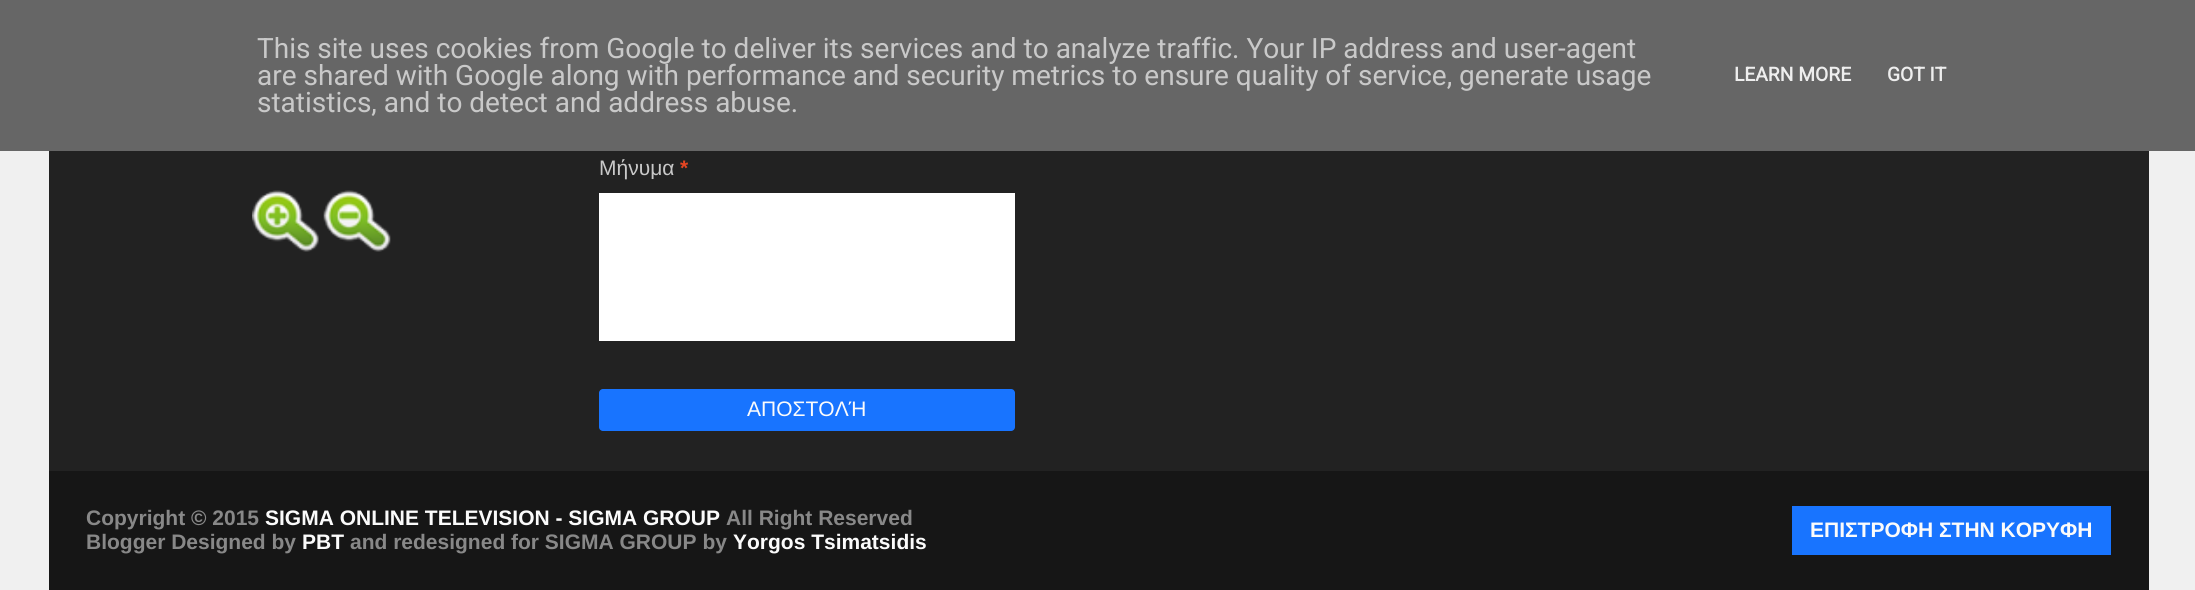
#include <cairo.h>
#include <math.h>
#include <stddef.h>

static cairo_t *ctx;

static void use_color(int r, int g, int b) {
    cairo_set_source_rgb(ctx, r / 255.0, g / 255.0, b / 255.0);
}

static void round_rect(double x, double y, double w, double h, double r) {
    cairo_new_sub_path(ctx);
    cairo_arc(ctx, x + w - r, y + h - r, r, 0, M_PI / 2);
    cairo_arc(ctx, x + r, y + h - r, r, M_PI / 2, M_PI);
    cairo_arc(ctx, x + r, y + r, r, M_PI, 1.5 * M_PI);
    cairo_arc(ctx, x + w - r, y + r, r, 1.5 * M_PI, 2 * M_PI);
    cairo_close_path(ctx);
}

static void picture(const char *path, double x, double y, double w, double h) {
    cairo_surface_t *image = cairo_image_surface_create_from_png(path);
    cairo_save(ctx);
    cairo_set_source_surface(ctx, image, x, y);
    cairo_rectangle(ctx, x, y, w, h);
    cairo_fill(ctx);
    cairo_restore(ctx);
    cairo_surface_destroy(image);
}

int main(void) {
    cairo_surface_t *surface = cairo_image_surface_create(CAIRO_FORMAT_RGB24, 2195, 590);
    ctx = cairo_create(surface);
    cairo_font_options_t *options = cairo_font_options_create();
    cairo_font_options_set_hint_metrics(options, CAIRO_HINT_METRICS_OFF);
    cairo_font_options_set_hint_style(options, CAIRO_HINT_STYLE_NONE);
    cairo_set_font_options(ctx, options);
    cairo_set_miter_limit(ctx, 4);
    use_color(240, 240, 240);
    cairo_paint(ctx);
    use_color(102, 102, 102);
    cairo_rectangle(ctx, 0, 0, 2195, 151);
    cairo_fill(ctx);
    cairo_select_font_face(ctx, "Roboto", CAIRO_FONT_SLANT_NORMAL, CAIRO_FONT_WEIGHT_NORMAL);
    cairo_set_font_size(ctx, 28);
    use_color(201, 201, 201);
    cairo_move_to(ctx, 257, 58);
    cairo_show_text(ctx, "This site uses cookies from Google to deliver its services and to analyze traffic. Your IP address and user-agent");
    cairo_move_to(ctx, 257, 85);
    cairo_show_text(ctx, "are shared with Google along with performance and security metrics to ensure quality of service, generate usage");
    cairo_move_to(ctx, 257, 112);
    cairo_show_text(ctx, "statistics, and to detect and address abuse.");
    cairo_select_font_face(ctx, "Roboto", CAIRO_FONT_SLANT_NORMAL, CAIRO_FONT_WEIGHT_BOLD);
    cairo_set_font_size(ctx, 19.25);
    use_color(238, 238, 238);
    cairo_move_to(ctx, 1734, 81);
    cairo_show_text(ctx, "LEARN MORE");
    cairo_move_to(ctx, 1887, 81);
    cairo_show_text(ctx, "GOT IT");
    use_color(34, 34, 34);
    cairo_rectangle(ctx, 49, 151, 2100, 320);
    cairo_fill(ctx);
    picture("img1.png", 252, 190, 67, 62);
    picture("img2.png", 323, 190, 68, 62);
    cairo_select_font_face(ctx, "Liberation Sans", CAIRO_FONT_SLANT_NORMAL, CAIRO_FONT_WEIGHT_NORMAL);
    cairo_set_font_size(ctx, 21);
    use_color(201, 201, 201);
    cairo_move_to(ctx, 599, 175);
    cairo_show_text(ctx, "Μήνυμα");
    cairo_select_font_face(ctx, "Liberation Sans", CAIRO_FONT_SLANT_NORMAL, CAIRO_FONT_WEIGHT_BOLD);
    use_color(230, 69, 34);
    cairo_move_to(ctx, 680, 175);
    cairo_show_text(ctx, "*");
    use_color(255, 255, 255);
    cairo_rectangle(ctx, 599, 193, 416, 148);
    cairo_fill(ctx);
    use_color(24, 116, 255);
    round_rect(599, 389, 416, 42, 4);
    cairo_fill(ctx);
    cairo_select_font_face(ctx, "Liberation Sans", CAIRO_FONT_SLANT_NORMAL, CAIRO_FONT_WEIGHT_NORMAL);
    use_color(251, 251, 251);
    cairo_move_to(ctx, 747, 416);
    cairo_show_text(ctx, "ΑΠΟΣΤΟΛΉ");
    use_color(22, 22, 22);
    cairo_rectangle(ctx, 49, 471, 2100, 119);
    cairo_fill(ctx);
    cairo_select_font_face(ctx, "Liberation Sans", CAIRO_FONT_SLANT_NORMAL, CAIRO_FONT_WEIGHT_BOLD);
    use_color(136, 136, 136);
    cairo_move_to(ctx, 86, 525);
    cairo_show_text(ctx, "Copyright © 2015");
    use_color(251, 251, 251);
    cairo_move_to(ctx, 265, 525);
    cairo_show_text(ctx, "SIGMA ONLINE TELEVISION - SIGMA GROUP");
    use_color(136, 136, 136);
    cairo_move_to(ctx, 726, 525);
    cairo_show_text(ctx, "All Right Reserved");
    cairo_move_to(ctx, 86, 549);
    cairo_show_text(ctx, "Blogger Designed by");
    use_color(251, 251, 251);
    cairo_move_to(ctx, 302, 549);
    cairo_show_text(ctx, "PBT");
    use_color(136, 136, 136);
    cairo_move_to(ctx, 350, 549);
    cairo_show_text(ctx, "and redesigned for SIGMA GROUP by");
    use_color(251, 251, 251);
    cairo_move_to(ctx, 733, 549);
    cairo_show_text(ctx, "Yorgos Tsimatsidis");
    use_color(24, 116, 255);
    cairo_rectangle(ctx, 1792, 506, 319, 49);
    cairo_fill(ctx);
    use_color(251, 251, 251);
    cairo_move_to(ctx, 1810, 537);
    cairo_show_text(ctx, "ΕΠΙΣΤΡΟΦΗ ΣΤΗΝ ΚΟΡΥΦΗ");
    cairo_surface_write_to_png(surface, "result.png");
    cairo_font_options_destroy(options);
    cairo_destroy(ctx);
    cairo_surface_destroy(surface);
    return 0;
}
